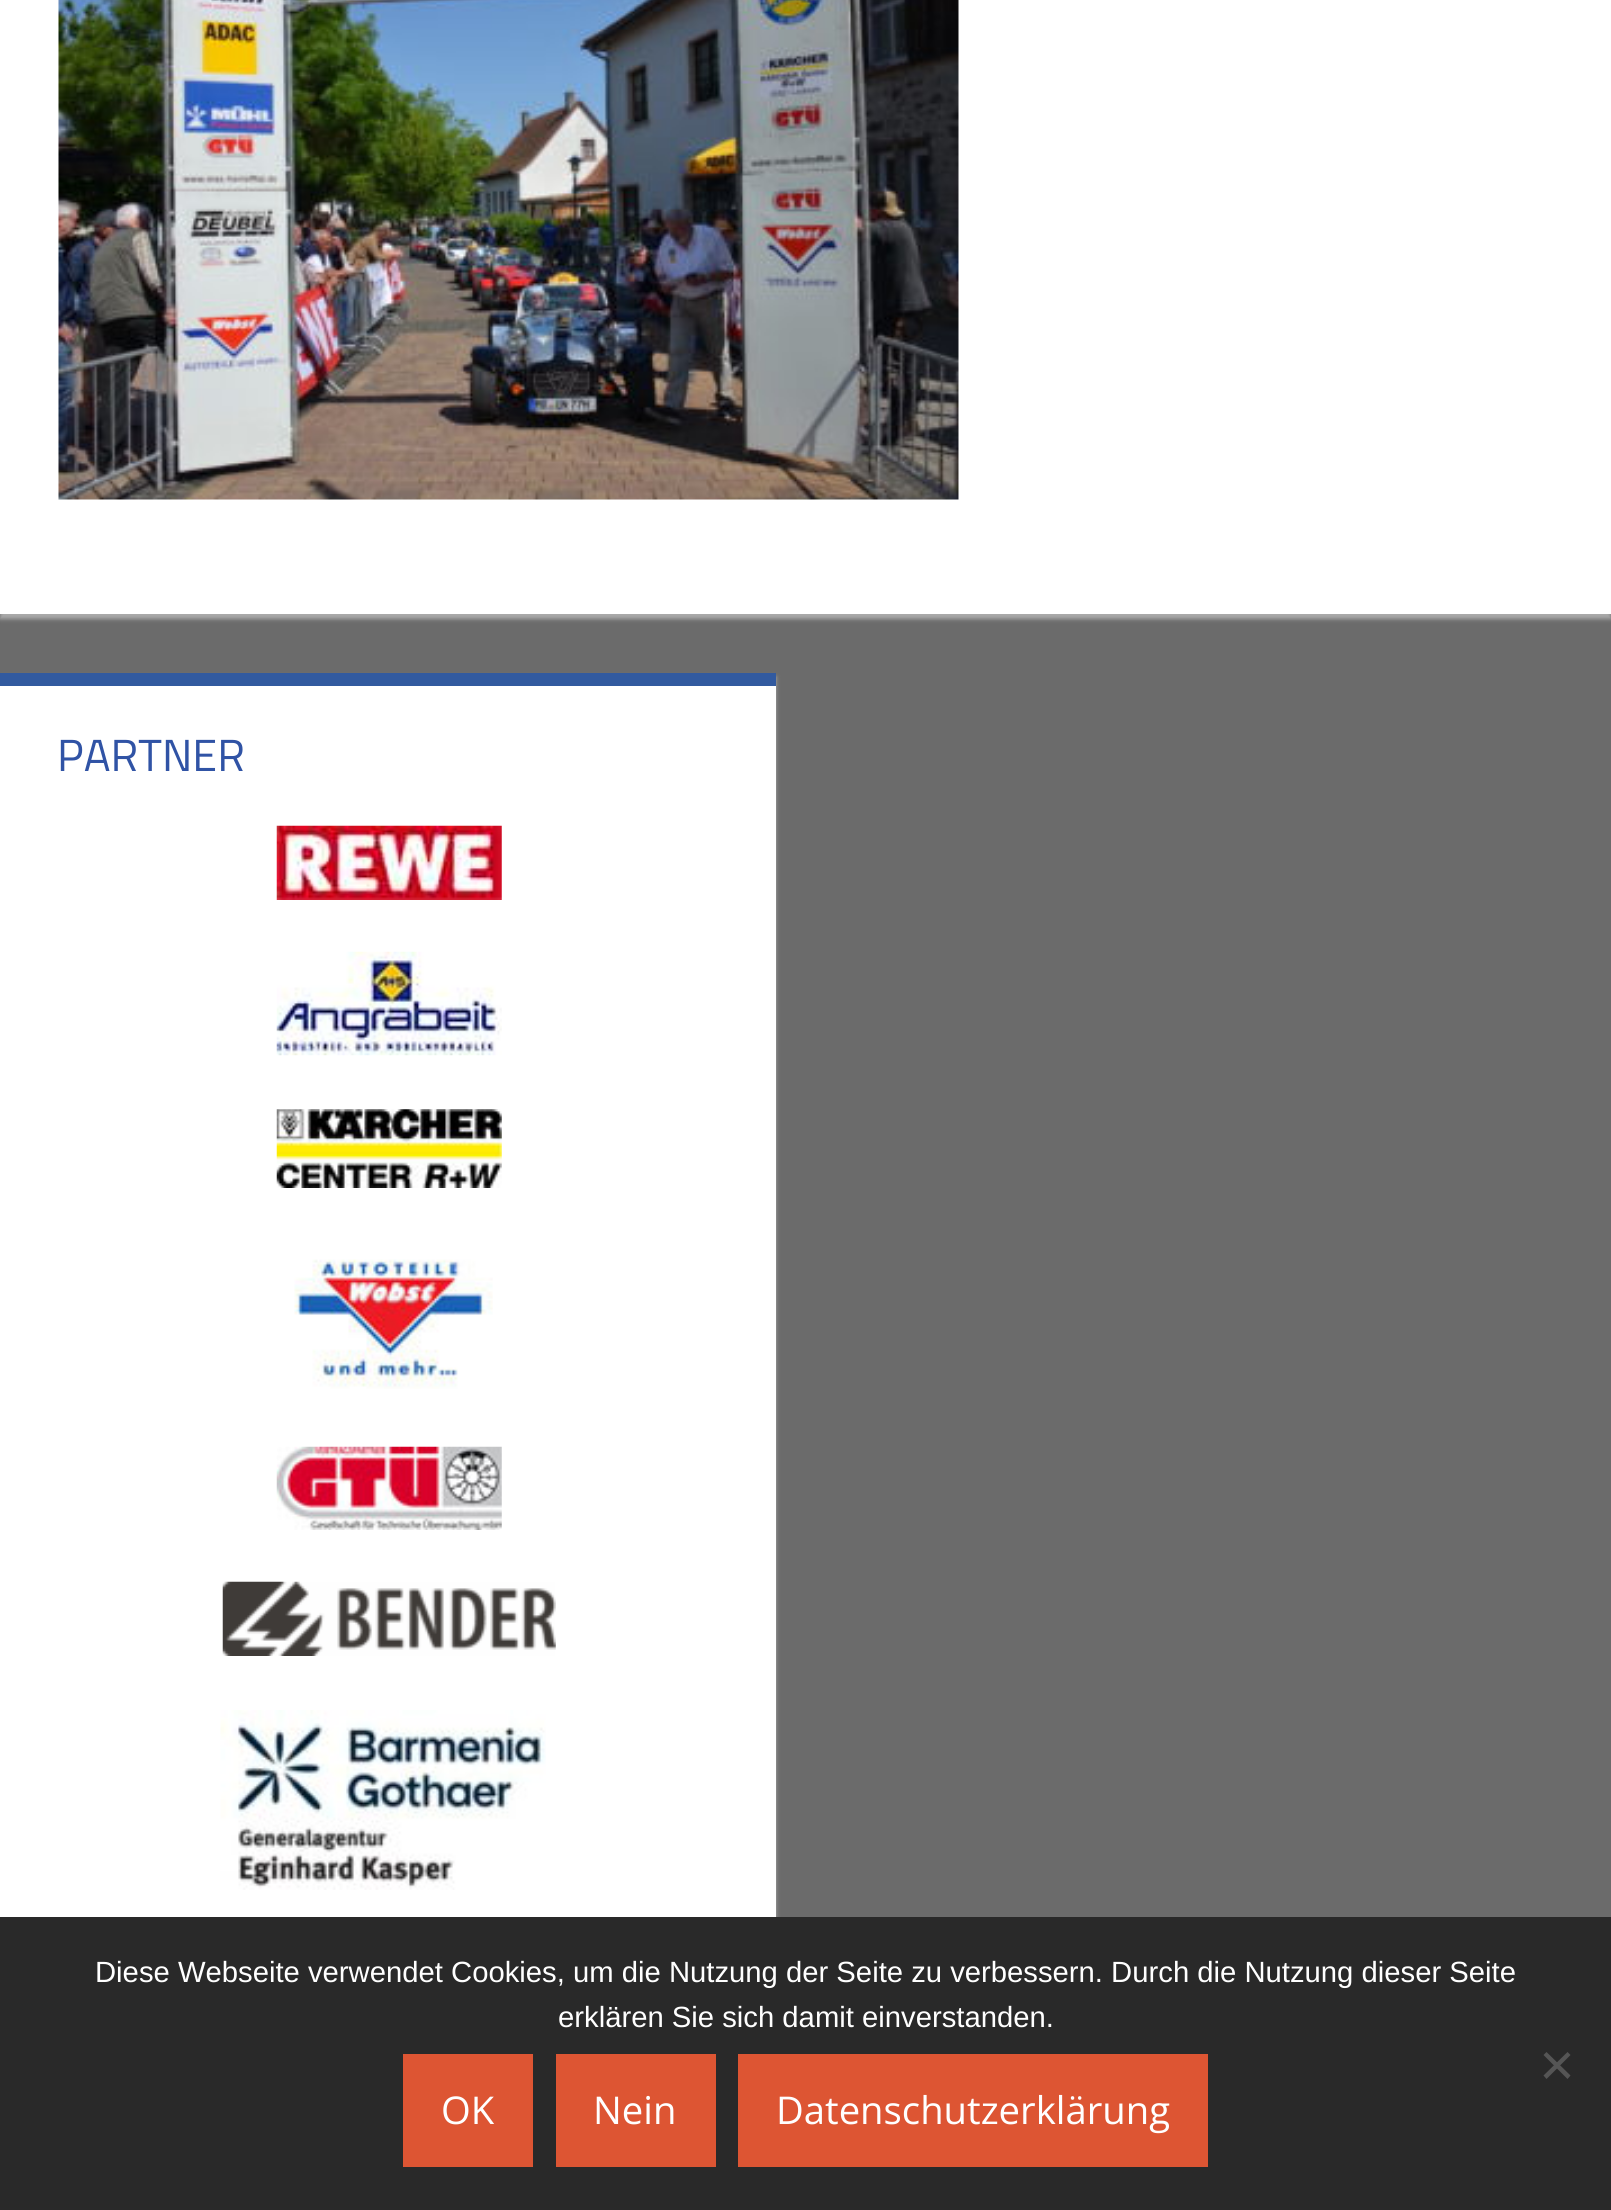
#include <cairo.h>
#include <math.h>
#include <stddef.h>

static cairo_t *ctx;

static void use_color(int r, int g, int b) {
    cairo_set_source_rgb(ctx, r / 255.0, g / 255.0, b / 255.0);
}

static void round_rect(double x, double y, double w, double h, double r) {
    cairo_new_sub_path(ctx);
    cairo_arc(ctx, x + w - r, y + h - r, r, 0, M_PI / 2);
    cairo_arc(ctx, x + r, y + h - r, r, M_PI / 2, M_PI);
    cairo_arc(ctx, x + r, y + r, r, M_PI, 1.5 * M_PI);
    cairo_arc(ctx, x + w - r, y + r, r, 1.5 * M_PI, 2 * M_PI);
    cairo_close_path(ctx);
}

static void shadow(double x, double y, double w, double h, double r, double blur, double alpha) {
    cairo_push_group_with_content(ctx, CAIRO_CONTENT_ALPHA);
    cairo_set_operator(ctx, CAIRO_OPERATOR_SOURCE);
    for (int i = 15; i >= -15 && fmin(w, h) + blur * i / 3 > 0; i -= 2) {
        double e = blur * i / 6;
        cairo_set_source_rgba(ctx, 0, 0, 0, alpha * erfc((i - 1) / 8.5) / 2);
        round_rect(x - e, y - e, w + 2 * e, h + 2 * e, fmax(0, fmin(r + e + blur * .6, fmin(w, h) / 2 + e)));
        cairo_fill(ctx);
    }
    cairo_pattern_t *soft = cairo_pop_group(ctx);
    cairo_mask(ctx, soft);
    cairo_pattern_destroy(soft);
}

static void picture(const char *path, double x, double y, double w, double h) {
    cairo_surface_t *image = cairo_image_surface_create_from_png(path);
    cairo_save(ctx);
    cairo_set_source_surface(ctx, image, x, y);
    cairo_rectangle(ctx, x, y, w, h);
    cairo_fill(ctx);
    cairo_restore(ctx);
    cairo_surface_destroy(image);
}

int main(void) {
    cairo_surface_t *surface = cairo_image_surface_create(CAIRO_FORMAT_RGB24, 1611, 2210);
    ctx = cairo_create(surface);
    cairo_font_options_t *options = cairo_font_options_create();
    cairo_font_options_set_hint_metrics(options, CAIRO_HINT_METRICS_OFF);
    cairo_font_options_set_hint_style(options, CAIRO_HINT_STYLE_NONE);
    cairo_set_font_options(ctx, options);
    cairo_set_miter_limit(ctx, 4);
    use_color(107, 107, 107);
    cairo_paint(ctx);
    use_color(170, 170, 170);
    shadow(0, -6, 1611, 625, 0, 2, 1);
    use_color(255, 255, 255);
    cairo_rectangle(ctx, 0, 0, 1611, 614);
    cairo_fill(ctx);
    picture("img1.png", 58, 0, 901, 500);
    use_color(170, 170, 170);
    shadow(0, 677, 776, 1339, 0, 2, 1);
    use_color(255, 255, 255);
    cairo_rectangle(ctx, 0, 686, 776, 1231);
    cairo_fill(ctx);
    use_color(50, 90, 159);
    cairo_rectangle(ctx, 0, 673, 776, 13);
    cairo_fill(ctx);
    cairo_select_font_face(ctx, "Titillium Web", CAIRO_FONT_SLANT_NORMAL, CAIRO_FONT_WEIGHT_NORMAL);
    cairo_set_font_size(ctx, 45);
    use_color(48, 83, 165);
    cairo_move_to(ctx, 57, 771);
    cairo_show_text(ctx, "PARTNER");
    picture("img2.png", 276, 825, 226, 75);
    picture("img3.png", 276, 951, 226, 105);
    picture("img4.png", 276, 1109, 226, 79);
    picture("img5.png", 294, 1259, 199, 130);
    picture("img6.png", 276, 1446, 226, 84);
    picture("img7.png", 222, 1581, 334, 75);
    picture("img8.png", 220, 1710, 326, 180);
    use_color(41, 41, 41);
    cairo_rectangle(ctx, 0, 1917, 1611, 293);
    cairo_fill(ctx);
    cairo_select_font_face(ctx, "Liberation Sans", CAIRO_FONT_SLANT_NORMAL, CAIRO_FONT_WEIGHT_NORMAL);
    cairo_set_font_size(ctx, 29.25);
    use_color(255, 255, 255);
    cairo_move_to(ctx, 95, 1982);
    cairo_show_text(ctx, "Diese Webseite verwendet Cookies, um die Nutzung der Seite zu verbessern. Durch die Nutzung dieser Seite");
    cairo_move_to(ctx, 558, 2027);
    cairo_show_text(ctx, "erklären Sie sich damit einverstanden.");
    use_color(85, 85, 85);
    cairo_new_path(ctx);
    cairo_move_to(ctx, 1567.5, 2052);
    cairo_line_to(ctx, 1570.5, 2055);
    cairo_line_to(ctx, 1546.5, 2079);
    cairo_line_to(ctx, 1543.5, 2075.5);
    cairo_close_path(ctx);
    cairo_fill(ctx);
    cairo_new_path(ctx);
    cairo_move_to(ctx, 1543.5, 2055);
    cairo_line_to(ctx, 1546.5, 2052);
    cairo_line_to(ctx, 1570.5, 2075.5);
    cairo_line_to(ctx, 1567.5, 2079);
    cairo_close_path(ctx);
    cairo_fill(ctx);
    use_color(221, 85, 51);
    cairo_rectangle(ctx, 403, 2054, 130, 113);
    cairo_fill(ctx);
    cairo_select_font_face(ctx, "Open Sans", CAIRO_FONT_SLANT_NORMAL, CAIRO_FONT_WEIGHT_NORMAL);
    cairo_set_font_size(ctx, 38.25);
    use_color(255, 255, 255);
    cairo_move_to(ctx, 441, 2124);
    cairo_show_text(ctx, "OK");
    use_color(221, 85, 51);
    cairo_rectangle(ctx, 556, 2054, 160, 113);
    cairo_fill(ctx);
    use_color(255, 255, 255);
    cairo_move_to(ctx, 593, 2124);
    cairo_show_text(ctx, "Nein");
    use_color(221, 85, 51);
    cairo_rectangle(ctx, 738, 2054, 470, 113);
    cairo_fill(ctx);
    use_color(255, 255, 255);
    cairo_move_to(ctx, 776, 2124);
    cairo_show_text(ctx, "Datenschutzerklärung");
    cairo_surface_write_to_png(surface, "result.png");
    cairo_font_options_destroy(options);
    cairo_destroy(ctx);
    cairo_surface_destroy(surface);
    return 0;
}
